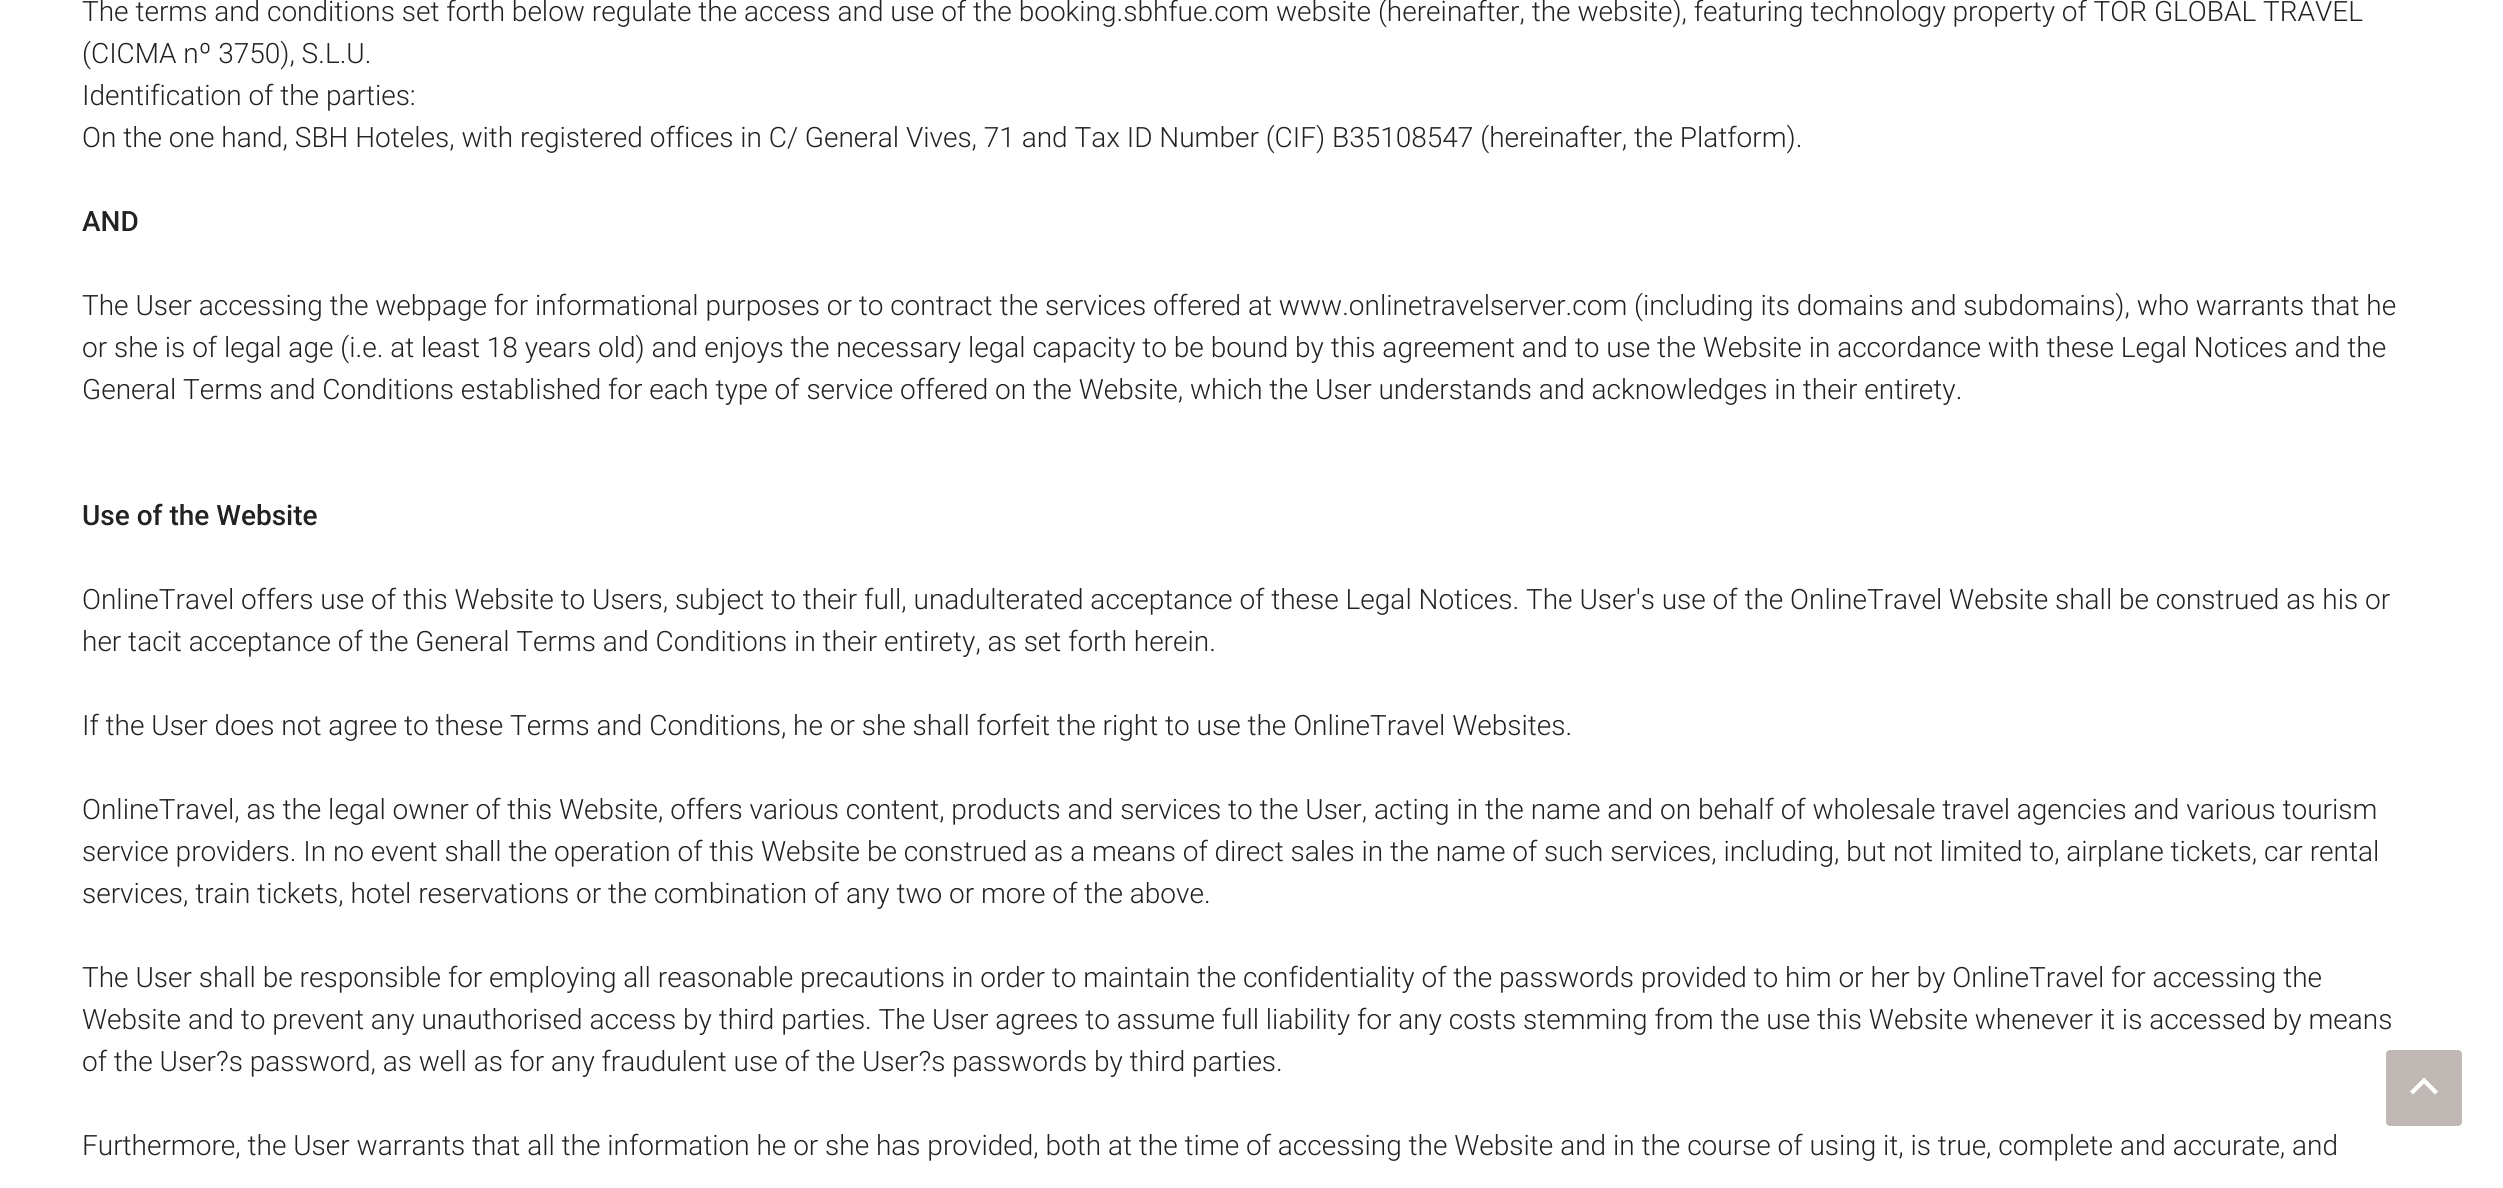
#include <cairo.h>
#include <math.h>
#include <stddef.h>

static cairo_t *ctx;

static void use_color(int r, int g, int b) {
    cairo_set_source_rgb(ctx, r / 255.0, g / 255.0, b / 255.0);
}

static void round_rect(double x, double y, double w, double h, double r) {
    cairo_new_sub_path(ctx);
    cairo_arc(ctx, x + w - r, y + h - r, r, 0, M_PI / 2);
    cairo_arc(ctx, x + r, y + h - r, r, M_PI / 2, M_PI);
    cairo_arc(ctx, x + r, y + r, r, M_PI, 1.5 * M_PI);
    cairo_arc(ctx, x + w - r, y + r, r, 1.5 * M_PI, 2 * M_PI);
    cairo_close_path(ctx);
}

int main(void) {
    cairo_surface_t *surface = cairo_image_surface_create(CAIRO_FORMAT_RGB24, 2503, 1188);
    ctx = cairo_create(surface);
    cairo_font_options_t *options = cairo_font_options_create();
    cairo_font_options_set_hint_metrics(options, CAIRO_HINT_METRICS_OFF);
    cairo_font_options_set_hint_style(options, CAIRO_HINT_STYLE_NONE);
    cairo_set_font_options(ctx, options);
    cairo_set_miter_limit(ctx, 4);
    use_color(255, 255, 255);
    cairo_paint(ctx);
    cairo_select_font_face(ctx, "Roboto Light", CAIRO_FONT_SLANT_NORMAL, CAIRO_FONT_WEIGHT_NORMAL);
    cairo_set_font_size(ctx, 28);
    use_color(34, 34, 34);
    cairo_move_to(ctx, 82, 21);
    cairo_show_text(ctx, "The terms and conditions set forth below regulate the access and use of the booking.sbhfue.com website (hereinafter, the website), featuring technology property of TOR GLOBAL TRAVEL");
    cairo_move_to(ctx, 82, 63);
    cairo_show_text(ctx, "(CICMA nº 3750), S.L.U.");
    cairo_move_to(ctx, 82, 105);
    cairo_show_text(ctx, "Identification of the parties:");
    cairo_move_to(ctx, 82, 147);
    cairo_show_text(ctx, "On the one hand, SBH Hoteles, with registered offices in C/ General Vives, 71 and Tax ID Number (CIF) B35108547 (hereinafter, the Platform).");
    cairo_select_font_face(ctx, "Roboto Medium", CAIRO_FONT_SLANT_NORMAL, CAIRO_FONT_WEIGHT_NORMAL);
    cairo_move_to(ctx, 82, 231);
    cairo_show_text(ctx, "AND");
    cairo_select_font_face(ctx, "Roboto Light", CAIRO_FONT_SLANT_NORMAL, CAIRO_FONT_WEIGHT_NORMAL);
    cairo_move_to(ctx, 82, 315);
    cairo_show_text(ctx, "The User accessing the webpage for informational purposes or to contract the services offered at www.onlinetravelserver.com (including its domains and subdomains), who warrants that he");
    cairo_move_to(ctx, 82, 357);
    cairo_show_text(ctx, "or she is of legal age (i.e. at least 18 years old) and enjoys the necessary legal capacity to be bound by this agreement and to use the Website in accordance with these Legal Notices and the");
    cairo_move_to(ctx, 82, 399);
    cairo_show_text(ctx, "General Terms and Conditions established for each type of service offered on the Website, which the User understands and acknowledges in their entirety.");
    cairo_select_font_face(ctx, "Roboto Medium", CAIRO_FONT_SLANT_NORMAL, CAIRO_FONT_WEIGHT_NORMAL);
    cairo_move_to(ctx, 82, 525);
    cairo_show_text(ctx, "Use of the Website");
    cairo_select_font_face(ctx, "Roboto Light", CAIRO_FONT_SLANT_NORMAL, CAIRO_FONT_WEIGHT_NORMAL);
    cairo_move_to(ctx, 82, 609);
    cairo_show_text(ctx, "OnlineTravel offers use of this Website to Users, subject to their full, unadulterated acceptance of these Legal Notices. The User's use of the OnlineTravel Website shall be construed as his or");
    cairo_move_to(ctx, 82, 651);
    cairo_show_text(ctx, "her tacit acceptance of the General Terms and Conditions in their entirety, as set forth herein.");
    cairo_move_to(ctx, 82, 735);
    cairo_show_text(ctx, "If the User does not agree to these Terms and Conditions, he or she shall forfeit the right to use the OnlineTravel Websites.");
    cairo_move_to(ctx, 82, 819);
    cairo_show_text(ctx, "OnlineTravel, as the legal owner of this Website, offers various content, products and services to the User, acting in the name and on behalf of wholesale travel agencies and various tourism");
    cairo_move_to(ctx, 82, 861);
    cairo_show_text(ctx, "service providers. In no event shall the operation of this Website be construed as a means of direct sales in the name of such services, including, but not limited to, airplane tickets, car rental");
    cairo_move_to(ctx, 82, 903);
    cairo_show_text(ctx, "services, train tickets, hotel reservations or the combination of any two or more of the above.");
    cairo_move_to(ctx, 82, 987);
    cairo_show_text(ctx, "The User shall be responsible for employing all reasonable precautions in order to maintain the confidentiality of the passwords provided to him or her by OnlineTravel for accessing the");
    cairo_move_to(ctx, 82, 1029);
    cairo_show_text(ctx, "Website and to prevent any unauthorised access by third parties. The User agrees to assume full liability for any costs stemming from the use this Website whenever it is accessed by means");
    cairo_move_to(ctx, 82, 1071);
    cairo_show_text(ctx, "of the User?s password, as well as for any fraudulent use of the User?s passwords by third parties.");
    cairo_move_to(ctx, 82, 1155);
    cairo_show_text(ctx, "Furthermore, the User warrants that all the information he or she has provided, both at the time of accessing the Website and in the course of using it, is true, complete and accurate, and");
    use_color(191, 184, 180);
    round_rect(2385, 1049, 78, 78, 5);
    cairo_fill_preserve(ctx);
    use_color(255, 255, 255);
    cairo_stroke(ctx);
    cairo_set_fill_rule(ctx, CAIRO_FILL_RULE_EVEN_ODD);
    cairo_new_path(ctx);
    cairo_move_to(ctx, 2435, 1094.5);
    cairo_line_to(ctx, 2424, 1083.5);
    cairo_line_to(ctx, 2413, 1094.5);
    cairo_line_to(ctx, 2410, 1091.5);
    cairo_line_to(ctx, 2424, 1077.5);
    cairo_line_to(ctx, 2438, 1091.5);
    cairo_close_path(ctx);
    cairo_fill(ctx);
    cairo_surface_write_to_png(surface, "result.png");
    cairo_font_options_destroy(options);
    cairo_destroy(ctx);
    cairo_surface_destroy(surface);
    return 0;
}
